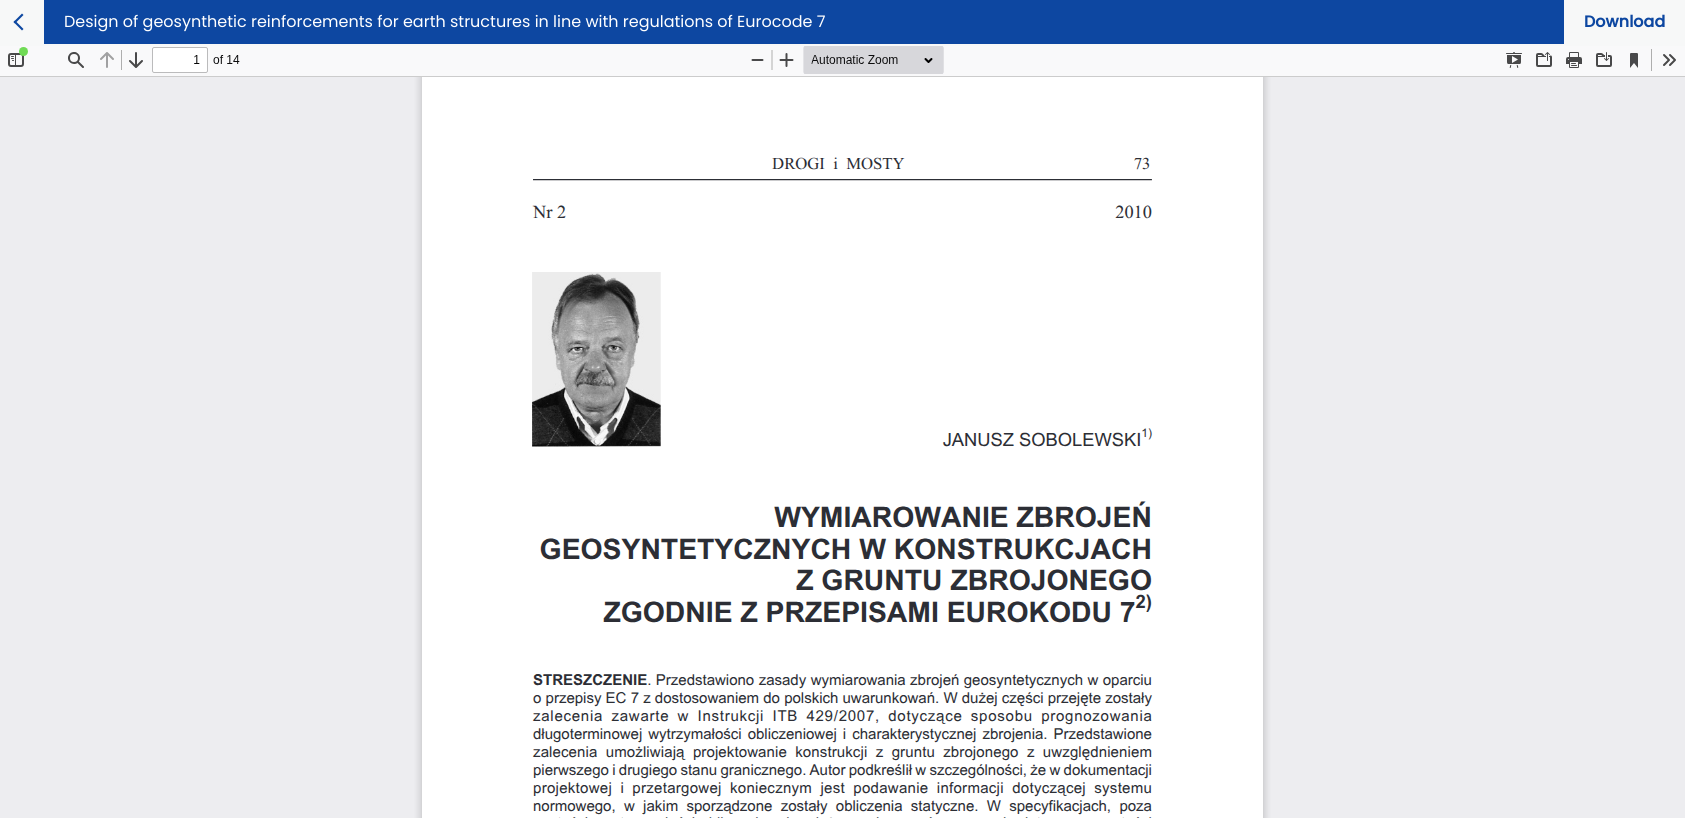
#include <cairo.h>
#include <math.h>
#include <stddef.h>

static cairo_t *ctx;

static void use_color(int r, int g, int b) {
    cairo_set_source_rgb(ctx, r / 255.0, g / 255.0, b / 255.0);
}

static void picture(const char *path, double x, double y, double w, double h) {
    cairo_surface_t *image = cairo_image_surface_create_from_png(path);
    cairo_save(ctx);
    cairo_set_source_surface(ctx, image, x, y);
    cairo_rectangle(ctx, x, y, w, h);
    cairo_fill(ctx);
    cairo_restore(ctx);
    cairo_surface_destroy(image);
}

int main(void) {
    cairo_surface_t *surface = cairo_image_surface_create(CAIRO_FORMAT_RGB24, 1685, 818);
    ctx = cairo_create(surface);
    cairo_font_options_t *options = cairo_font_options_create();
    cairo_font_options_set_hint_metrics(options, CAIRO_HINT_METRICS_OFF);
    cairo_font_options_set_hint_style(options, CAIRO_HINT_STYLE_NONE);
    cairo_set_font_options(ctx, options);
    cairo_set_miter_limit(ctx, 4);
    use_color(247, 248, 248);
    cairo_paint(ctx);
    use_color(13, 71, 161);
    cairo_new_path(ctx);
    cairo_move_to(ctx, 13.5, 22);
    cairo_line_to(ctx, 22, 13.5);
    cairo_line_to(ctx, 23.5, 15);
    cairo_line_to(ctx, 15, 23.5);
    cairo_close_path(ctx);
    cairo_fill(ctx);
    cairo_new_path(ctx);
    cairo_move_to(ctx, 13.5, 22);
    cairo_line_to(ctx, 15, 20.5);
    cairo_line_to(ctx, 23.5, 29);
    cairo_line_to(ctx, 22, 30.5);
    cairo_close_path(ctx);
    cairo_fill(ctx);
    cairo_rectangle(ctx, 44, 0, 1520, 44);
    cairo_fill(ctx);
    cairo_select_font_face(ctx, "Poppins", CAIRO_FONT_SLANT_NORMAL, CAIRO_FONT_WEIGHT_NORMAL);
    cairo_set_font_size(ctx, 16);
    use_color(255, 255, 255);
    cairo_move_to(ctx, 64, 27);
    cairo_show_text(ctx, "Design of geosynthetic reinforcements for earth structures in line with regulations of Eurocode 7");
    cairo_select_font_face(ctx, "Poppins", CAIRO_FONT_SLANT_NORMAL, CAIRO_FONT_WEIGHT_BOLD);
    use_color(13, 71, 161);
    cairo_move_to(ctx, 1584, 27);
    cairo_show_text(ctx, "Download");
    picture("img1.png", 0, 46, 1685, 772);
    cairo_surface_write_to_png(surface, "result.png");
    cairo_font_options_destroy(options);
    cairo_destroy(ctx);
    cairo_surface_destroy(surface);
    return 0;
}
